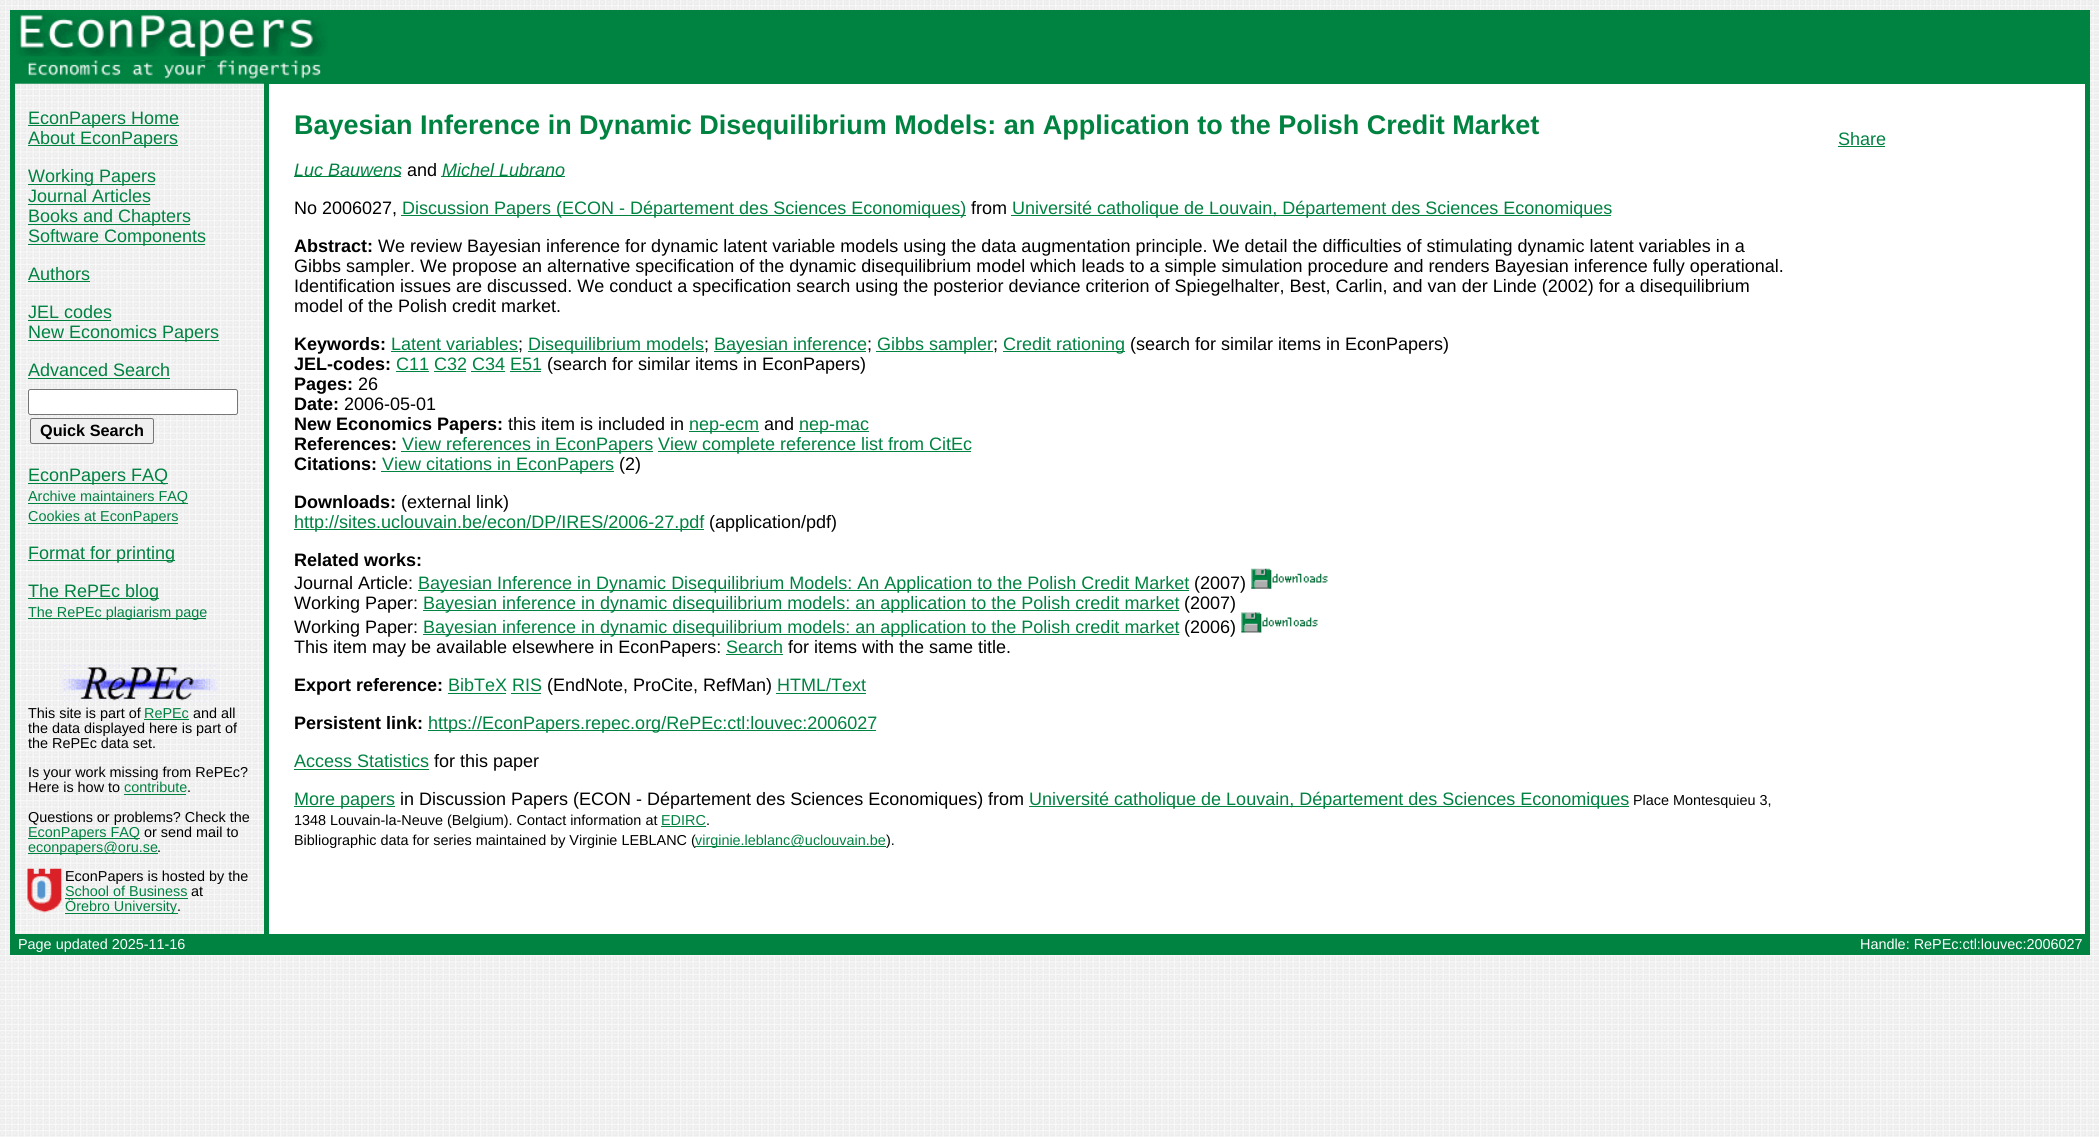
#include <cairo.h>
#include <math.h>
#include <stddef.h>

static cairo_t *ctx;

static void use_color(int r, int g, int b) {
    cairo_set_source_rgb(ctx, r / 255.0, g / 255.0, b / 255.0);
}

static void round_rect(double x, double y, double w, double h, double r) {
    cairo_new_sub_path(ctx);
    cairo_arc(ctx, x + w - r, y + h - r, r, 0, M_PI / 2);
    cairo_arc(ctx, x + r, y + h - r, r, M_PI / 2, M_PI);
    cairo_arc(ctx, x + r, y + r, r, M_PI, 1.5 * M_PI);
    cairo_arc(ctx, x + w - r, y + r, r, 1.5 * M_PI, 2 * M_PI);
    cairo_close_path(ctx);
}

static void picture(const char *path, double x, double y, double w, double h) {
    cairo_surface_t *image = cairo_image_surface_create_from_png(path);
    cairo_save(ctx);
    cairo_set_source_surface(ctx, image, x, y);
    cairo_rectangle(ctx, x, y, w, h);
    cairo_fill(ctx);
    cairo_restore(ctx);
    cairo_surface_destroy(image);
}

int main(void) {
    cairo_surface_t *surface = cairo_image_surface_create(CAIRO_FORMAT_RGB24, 2099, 1137);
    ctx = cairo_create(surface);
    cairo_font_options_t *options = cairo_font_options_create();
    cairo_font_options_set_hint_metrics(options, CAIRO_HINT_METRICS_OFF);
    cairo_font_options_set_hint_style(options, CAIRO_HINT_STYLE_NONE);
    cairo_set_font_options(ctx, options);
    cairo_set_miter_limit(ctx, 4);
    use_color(255, 255, 255);
    cairo_paint(ctx);
    picture("img1.png", 0, 0, 2099, 1137);
    use_color(0, 130, 65);
    cairo_rectangle(ctx, 10, 10, 5, 945);
    cairo_fill(ctx);
    cairo_rectangle(ctx, 15, 10, 2070, 50);
    cairo_fill(ctx);
    picture("img2.png", 16, 13, 312, 44);
    cairo_rectangle(ctx, 2085, 10, 5, 945);
    cairo_fill(ctx);
    cairo_rectangle(ctx, 15, 60, 2070, 24);
    cairo_fill(ctx);
    picture("img3.png", 23, 60, 298, 19);
    picture("img4.png", 15, 83, 249, 562);
    cairo_rectangle(ctx, 28, 125, 151, 1);
    cairo_fill(ctx);
    cairo_select_font_face(ctx, "Liberation Sans", CAIRO_FONT_SLANT_NORMAL, CAIRO_FONT_WEIGHT_NORMAL);
    cairo_set_font_size(ctx, 18);
    cairo_move_to(ctx, 28, 124);
    cairo_show_text(ctx, "EconPapers Home");
    cairo_rectangle(ctx, 28, 145, 150, 1);
    cairo_fill(ctx);
    cairo_move_to(ctx, 28, 144);
    cairo_show_text(ctx, "About EconPapers");
    cairo_rectangle(ctx, 28, 184, 127, 1);
    cairo_fill(ctx);
    cairo_move_to(ctx, 28, 182);
    cairo_show_text(ctx, "Working Papers");
    cairo_move_to(ctx, 28, 202);
    cairo_show_text(ctx, "Journal Articles");
    cairo_rectangle(ctx, 28, 204, 122, 1);
    cairo_fill(ctx);
    cairo_rectangle(ctx, 28, 224, 162, 1);
    cairo_fill(ctx);
    cairo_move_to(ctx, 28, 222);
    cairo_show_text(ctx, "Books and Chapters");
    cairo_rectangle(ctx, 28, 244, 177, 1);
    cairo_fill(ctx);
    cairo_move_to(ctx, 28, 242);
    cairo_show_text(ctx, "Software Components");
    cairo_move_to(ctx, 28, 280);
    cairo_show_text(ctx, "Authors");
    cairo_rectangle(ctx, 28, 281, 62, 1);
    cairo_fill(ctx);
    cairo_move_to(ctx, 28, 318);
    cairo_show_text(ctx, "JEL codes");
    cairo_rectangle(ctx, 28, 320, 83, 1);
    cairo_fill(ctx);
    cairo_rectangle(ctx, 28, 340, 191, 1);
    cairo_fill(ctx);
    cairo_move_to(ctx, 28, 338);
    cairo_show_text(ctx, "New Economics Papers");
    cairo_move_to(ctx, 28, 376);
    cairo_show_text(ctx, "Advanced Search");
    cairo_rectangle(ctx, 28, 378, 142, 1);
    cairo_fill(ctx);
    use_color(255, 255, 255);
    round_rect(28.5, 389.5, 209, 25, 2);
    cairo_fill_preserve(ctx);
    use_color(118, 118, 118);
    cairo_set_line_width(ctx, 1);
    cairo_stroke(ctx);
    use_color(239, 239, 239);
    round_rect(30.5, 418.5, 123, 25, 2);
    cairo_fill_preserve(ctx);
    use_color(118, 118, 118);
    cairo_stroke(ctx);
    cairo_select_font_face(ctx, "Liberation Sans", CAIRO_FONT_SLANT_NORMAL, CAIRO_FONT_WEIGHT_BOLD);
    cairo_set_font_size(ctx, 16.25);
    use_color(0, 0, 0);
    cairo_move_to(ctx, 40, 436);
    cairo_show_text(ctx, "Quick Search");
    use_color(0, 130, 65);
    cairo_rectangle(ctx, 28, 483, 140, 1);
    cairo_fill(ctx);
    cairo_select_font_face(ctx, "Liberation Sans", CAIRO_FONT_SLANT_NORMAL, CAIRO_FONT_WEIGHT_NORMAL);
    cairo_set_font_size(ctx, 18);
    cairo_move_to(ctx, 28, 481);
    cairo_show_text(ctx, "EconPapers FAQ");
    cairo_rectangle(ctx, 28, 503, 160, 1);
    cairo_fill(ctx);
    cairo_set_font_size(ctx, 14.4);
    cairo_move_to(ctx, 28, 501);
    cairo_show_text(ctx, "Archive maintainers FAQ");
    cairo_rectangle(ctx, 28, 523, 150, 1);
    cairo_fill(ctx);
    cairo_move_to(ctx, 28, 521);
    cairo_show_text(ctx, "Cookies at EconPapers");
    cairo_rectangle(ctx, 28, 560, 147, 1);
    cairo_fill(ctx);
    cairo_set_font_size(ctx, 18);
    cairo_move_to(ctx, 28, 559);
    cairo_show_text(ctx, "Format for printing");
    cairo_rectangle(ctx, 28, 598, 131, 1);
    cairo_fill(ctx);
    cairo_move_to(ctx, 28, 597);
    cairo_show_text(ctx, "The RePEc blog");
    cairo_rectangle(ctx, 28, 618, 178, 1);
    cairo_fill(ctx);
    cairo_set_font_size(ctx, 14.4);
    cairo_move_to(ctx, 28, 617);
    cairo_show_text(ctx, "The RePEc plagiarism page");
    cairo_rectangle(ctx, 264, 84, 5, 850);
    cairo_fill(ctx);
    use_color(255, 255, 255);
    cairo_rectangle(ctx, 269, 84, 1816, 850);
    cairo_fill(ctx);
    cairo_select_font_face(ctx, "Liberation Sans", CAIRO_FONT_SLANT_NORMAL, CAIRO_FONT_WEIGHT_BOLD);
    cairo_set_font_size(ctx, 27);
    use_color(0, 130, 65);
    cairo_move_to(ctx, 294, 134);
    cairo_show_text(ctx, "Bayesian Inference in Dynamic Disequilibrium Models: an Application to the Polish Credit Market");
    cairo_rectangle(ctx, 294, 176, 107, 1);
    cairo_fill(ctx);
    cairo_select_font_face(ctx, "Liberation Sans", CAIRO_FONT_SLANT_ITALIC, CAIRO_FONT_WEIGHT_NORMAL);
    cairo_set_font_size(ctx, 18);
    cairo_move_to(ctx, 294, 176);
    cairo_show_text(ctx, "Luc Bauwens");
    cairo_select_font_face(ctx, "Liberation Sans", CAIRO_FONT_SLANT_NORMAL, CAIRO_FONT_WEIGHT_NORMAL);
    use_color(0, 0, 0);
    cairo_move_to(ctx, 407, 176);
    cairo_show_text(ctx, "and");
    use_color(0, 130, 65);
    cairo_rectangle(ctx, 441, 176, 124, 1);
    cairo_fill(ctx);
    cairo_select_font_face(ctx, "Liberation Sans", CAIRO_FONT_SLANT_ITALIC, CAIRO_FONT_WEIGHT_NORMAL);
    cairo_move_to(ctx, 442, 176);
    cairo_show_text(ctx, "Michel Lubrano");
    cairo_select_font_face(ctx, "Liberation Sans", CAIRO_FONT_SLANT_NORMAL, CAIRO_FONT_WEIGHT_NORMAL);
    use_color(0, 0, 0);
    cairo_move_to(ctx, 294, 214);
    cairo_show_text(ctx, "No 2006027,");
    use_color(0, 130, 65);
    cairo_rectangle(ctx, 401, 215, 565, 1);
    cairo_fill(ctx);
    cairo_move_to(ctx, 402, 214);
    cairo_show_text(ctx, "Discussion Papers (ECON - Département des Sciences Economiques)");
    use_color(0, 0, 0);
    cairo_move_to(ctx, 971, 214);
    cairo_show_text(ctx, "from");
    use_color(0, 130, 65);
    cairo_rectangle(ctx, 1011, 215, 600, 1);
    cairo_fill(ctx);
    cairo_move_to(ctx, 1012, 214);
    cairo_show_text(ctx, "Université catholique de Louvain, Département des Sciences Economiques");
    cairo_select_font_face(ctx, "Liberation Sans", CAIRO_FONT_SLANT_NORMAL, CAIRO_FONT_WEIGHT_BOLD);
    use_color(0, 0, 0);
    cairo_move_to(ctx, 294, 252);
    cairo_show_text(ctx, "Abstract:");
    cairo_select_font_face(ctx, "Liberation Sans", CAIRO_FONT_SLANT_NORMAL, CAIRO_FONT_WEIGHT_NORMAL);
    cairo_move_to(ctx, 378, 252);
    cairo_show_text(ctx, "We review Bayesian inference for dynamic latent variable models using the data augmentation principle. We detail the difficulties of stimulating dynamic latent variables in a");
    cairo_move_to(ctx, 294, 272);
    cairo_show_text(ctx, "Gibbs sampler. We propose an alternative specification of the dynamic disequilibrium model which leads to a simple simulation procedure and renders Bayesian inference fully operational.");
    cairo_move_to(ctx, 294, 292);
    cairo_show_text(ctx, "Identification issues are discussed. We conduct a specification search using the posterior deviance criterion of Spiegelhalter, Best, Carlin, and van der Linde (2002) for a disequilibrium");
    cairo_move_to(ctx, 294, 312);
    cairo_show_text(ctx, "model of the Polish credit market.");
    cairo_select_font_face(ctx, "Liberation Sans", CAIRO_FONT_SLANT_NORMAL, CAIRO_FONT_WEIGHT_BOLD);
    cairo_move_to(ctx, 294, 350);
    cairo_show_text(ctx, "Keywords:");
    cairo_select_font_face(ctx, "Liberation Sans", CAIRO_FONT_SLANT_NORMAL, CAIRO_FONT_WEIGHT_NORMAL);
    use_color(0, 130, 65);
    cairo_move_to(ctx, 391, 350);
    cairo_show_text(ctx, "Latent variables");
    cairo_rectangle(ctx, 391, 351, 127, 1);
    cairo_fill(ctx);
    use_color(0, 0, 0);
    cairo_move_to(ctx, 518, 350);
    cairo_show_text(ctx, ";");
    use_color(0, 130, 65);
    cairo_rectangle(ctx, 528, 351, 176, 1);
    cairo_fill(ctx);
    cairo_move_to(ctx, 528, 350);
    cairo_show_text(ctx, "Disequilibrium models");
    use_color(0, 0, 0);
    cairo_move_to(ctx, 704, 350);
    cairo_show_text(ctx, ";");
    use_color(0, 130, 65);
    cairo_rectangle(ctx, 714, 351, 152, 1);
    cairo_fill(ctx);
    cairo_move_to(ctx, 714, 350);
    cairo_show_text(ctx, "Bayesian inference");
    use_color(0, 0, 0);
    cairo_move_to(ctx, 867, 350);
    cairo_show_text(ctx, ";");
    use_color(0, 130, 65);
    cairo_rectangle(ctx, 876, 351, 117, 1);
    cairo_fill(ctx);
    cairo_move_to(ctx, 877, 350);
    cairo_show_text(ctx, "Gibbs sampler");
    use_color(0, 0, 0);
    cairo_move_to(ctx, 993, 350);
    cairo_show_text(ctx, ";");
    use_color(0, 130, 65);
    cairo_rectangle(ctx, 1003, 351, 122, 1);
    cairo_fill(ctx);
    cairo_move_to(ctx, 1003, 350);
    cairo_show_text(ctx, "Credit rationing");
    use_color(0, 0, 0);
    cairo_move_to(ctx, 1130, 350);
    cairo_show_text(ctx, "(search for similar items in EconPapers)");
    cairo_select_font_face(ctx, "Liberation Sans", CAIRO_FONT_SLANT_NORMAL, CAIRO_FONT_WEIGHT_BOLD);
    cairo_move_to(ctx, 294, 370);
    cairo_show_text(ctx, "JEL-codes:");
    cairo_select_font_face(ctx, "Liberation Sans", CAIRO_FONT_SLANT_NORMAL, CAIRO_FONT_WEIGHT_NORMAL);
    use_color(0, 130, 65);
    cairo_move_to(ctx, 396, 370);
    cairo_show_text(ctx, "C11 C32 C34 E51");
    cairo_rectangle(ctx, 396, 371, 33, 1);
    cairo_fill(ctx);
    use_color(0, 0, 0);
    cairo_move_to(ctx, 547, 370);
    cairo_show_text(ctx, "(search for similar items in EconPapers)");
    use_color(0, 130, 65);
    cairo_rectangle(ctx, 434, 371, 32, 1);
    cairo_fill(ctx);
    cairo_rectangle(ctx, 471, 371, 34, 1);
    cairo_fill(ctx);
    cairo_rectangle(ctx, 510, 371, 31, 1);
    cairo_fill(ctx);
    cairo_select_font_face(ctx, "Liberation Sans", CAIRO_FONT_SLANT_NORMAL, CAIRO_FONT_WEIGHT_BOLD);
    use_color(0, 0, 0);
    cairo_move_to(ctx, 294, 390);
    cairo_show_text(ctx, "Pages:");
    cairo_select_font_face(ctx, "Liberation Sans", CAIRO_FONT_SLANT_NORMAL, CAIRO_FONT_WEIGHT_NORMAL);
    cairo_move_to(ctx, 358, 390);
    cairo_show_text(ctx, "26");
    cairo_select_font_face(ctx, "Liberation Sans", CAIRO_FONT_SLANT_NORMAL, CAIRO_FONT_WEIGHT_BOLD);
    cairo_move_to(ctx, 294, 410);
    cairo_show_text(ctx, "Date:");
    cairo_select_font_face(ctx, "Liberation Sans", CAIRO_FONT_SLANT_NORMAL, CAIRO_FONT_WEIGHT_NORMAL);
    cairo_move_to(ctx, 344, 410);
    cairo_show_text(ctx, "2006-05-01");
    cairo_select_font_face(ctx, "Liberation Sans", CAIRO_FONT_SLANT_NORMAL, CAIRO_FONT_WEIGHT_BOLD);
    cairo_move_to(ctx, 294, 430);
    cairo_show_text(ctx, "New Economics Papers:");
    cairo_select_font_face(ctx, "Liberation Sans", CAIRO_FONT_SLANT_NORMAL, CAIRO_FONT_WEIGHT_NORMAL);
    cairo_move_to(ctx, 508, 430);
    cairo_show_text(ctx, "this item is included in");
    use_color(0, 130, 65);
    cairo_rectangle(ctx, 689, 431, 70, 1);
    cairo_fill(ctx);
    cairo_move_to(ctx, 689, 430);
    cairo_show_text(ctx, "nep-ecm");
    use_color(0, 0, 0);
    cairo_move_to(ctx, 764, 430);
    cairo_show_text(ctx, "and");
    use_color(0, 130, 65);
    cairo_rectangle(ctx, 799, 431, 70, 1);
    cairo_fill(ctx);
    cairo_move_to(ctx, 799, 430);
    cairo_show_text(ctx, "nep-mac");
    cairo_select_font_face(ctx, "Liberation Sans", CAIRO_FONT_SLANT_NORMAL, CAIRO_FONT_WEIGHT_BOLD);
    use_color(0, 0, 0);
    cairo_move_to(ctx, 294, 450);
    cairo_show_text(ctx, "References:");
    use_color(0, 130, 65);
    cairo_rectangle(ctx, 401, 451, 252, 1);
    cairo_fill(ctx);
    cairo_select_font_face(ctx, "Liberation Sans", CAIRO_FONT_SLANT_NORMAL, CAIRO_FONT_WEIGHT_NORMAL);
    cairo_move_to(ctx, 402, 450);
    cairo_show_text(ctx, "View references in EconPapers");
    cairo_rectangle(ctx, 658, 451, 313, 1);
    cairo_fill(ctx);
    cairo_move_to(ctx, 658, 450);
    cairo_show_text(ctx, "View complete reference list from CitEc");
    cairo_select_font_face(ctx, "Liberation Sans", CAIRO_FONT_SLANT_NORMAL, CAIRO_FONT_WEIGHT_BOLD);
    use_color(0, 0, 0);
    cairo_move_to(ctx, 294, 470);
    cairo_show_text(ctx, "Citations:");
    use_color(0, 130, 65);
    cairo_rectangle(ctx, 381, 471, 233, 1);
    cairo_fill(ctx);
    cairo_select_font_face(ctx, "Liberation Sans", CAIRO_FONT_SLANT_NORMAL, CAIRO_FONT_WEIGHT_NORMAL);
    cairo_move_to(ctx, 382, 470);
    cairo_show_text(ctx, "View citations in EconPapers");
    use_color(0, 0, 0);
    cairo_move_to(ctx, 619, 470);
    cairo_show_text(ctx, "(2)");
    cairo_select_font_face(ctx, "Liberation Sans", CAIRO_FONT_SLANT_NORMAL, CAIRO_FONT_WEIGHT_BOLD);
    cairo_move_to(ctx, 294, 508);
    cairo_show_text(ctx, "Downloads:");
    cairo_select_font_face(ctx, "Liberation Sans", CAIRO_FONT_SLANT_NORMAL, CAIRO_FONT_WEIGHT_NORMAL);
    cairo_move_to(ctx, 401, 508);
    cairo_show_text(ctx, "(external link)");
    use_color(0, 130, 65);
    cairo_rectangle(ctx, 294, 529, 410, 1);
    cairo_fill(ctx);
    cairo_move_to(ctx, 294, 528);
    cairo_show_text(ctx, "http://sites.uclouvain.be/econ/DP/IRES/2006-27.pdf");
    use_color(0, 0, 0);
    cairo_move_to(ctx, 709, 528);
    cairo_show_text(ctx, "(application/pdf)");
    cairo_select_font_face(ctx, "Liberation Sans", CAIRO_FONT_SLANT_NORMAL, CAIRO_FONT_WEIGHT_BOLD);
    cairo_move_to(ctx, 294, 566);
    cairo_show_text(ctx, "Related works:");
    cairo_select_font_face(ctx, "Liberation Sans", CAIRO_FONT_SLANT_NORMAL, CAIRO_FONT_WEIGHT_NORMAL);
    cairo_move_to(ctx, 294, 589);
    cairo_show_text(ctx, "Journal Article:");
    use_color(0, 130, 65);
    cairo_rectangle(ctx, 418, 590, 771, 1);
    cairo_fill(ctx);
    cairo_move_to(ctx, 418, 589);
    cairo_show_text(ctx, "Bayesian Inference in Dynamic Disequilibrium Models: An Application to the Polish Credit Market");
    use_color(0, 0, 0);
    cairo_move_to(ctx, 1194, 589);
    cairo_show_text(ctx, "(2007)");
    picture("img5.png", 1251, 568, 77, 21);
    cairo_move_to(ctx, 294, 609);
    cairo_show_text(ctx, "Working Paper:");
    use_color(0, 130, 65);
    cairo_rectangle(ctx, 423, 610, 756, 1);
    cairo_fill(ctx);
    cairo_move_to(ctx, 423, 609);
    cairo_show_text(ctx, "Bayesian inference in dynamic disequilibrium models: an application to the Polish credit market");
    use_color(0, 0, 0);
    cairo_move_to(ctx, 1184, 609);
    cairo_show_text(ctx, "(2007)");
    cairo_move_to(ctx, 294, 633);
    cairo_show_text(ctx, "Working Paper:");
    use_color(0, 130, 65);
    cairo_rectangle(ctx, 423, 634, 756, 1);
    cairo_fill(ctx);
    cairo_move_to(ctx, 423, 633);
    cairo_show_text(ctx, "Bayesian inference in dynamic disequilibrium models: an application to the Polish credit market");
    use_color(0, 0, 0);
    cairo_move_to(ctx, 1184, 633);
    cairo_show_text(ctx, "(2006)");
    picture("img6.png", 1241, 612, 77, 21);
    cairo_move_to(ctx, 294, 653);
    cairo_show_text(ctx, "This item may be available elsewhere in EconPapers:");
    use_color(0, 130, 65);
    cairo_move_to(ctx, 726, 653);
    cairo_show_text(ctx, "Search");
    cairo_rectangle(ctx, 726, 654, 57, 1);
    cairo_fill(ctx);
    use_color(0, 0, 0);
    cairo_move_to(ctx, 788, 653);
    cairo_show_text(ctx, "for items with the same title.");
    cairo_select_font_face(ctx, "Liberation Sans", CAIRO_FONT_SLANT_NORMAL, CAIRO_FONT_WEIGHT_BOLD);
    cairo_move_to(ctx, 294, 691);
    cairo_show_text(ctx, "Export reference:");
    cairo_select_font_face(ctx, "Liberation Sans", CAIRO_FONT_SLANT_NORMAL, CAIRO_FONT_WEIGHT_NORMAL);
    use_color(0, 130, 65);
    cairo_move_to(ctx, 448, 691);
    cairo_show_text(ctx, "BibTeX RIS");
    cairo_rectangle(ctx, 448, 693, 58, 1);
    cairo_fill(ctx);
    use_color(0, 0, 0);
    cairo_move_to(ctx, 547, 691);
    cairo_show_text(ctx, "(EndNote, ProCite, RefMan)");
    use_color(0, 130, 65);
    cairo_move_to(ctx, 777, 691);
    cairo_show_text(ctx, "HTML/Text");
    cairo_rectangle(ctx, 776, 693, 90, 1);
    cairo_fill(ctx);
    cairo_rectangle(ctx, 511, 693, 30, 1);
    cairo_fill(ctx);
    cairo_select_font_face(ctx, "Liberation Sans", CAIRO_FONT_SLANT_NORMAL, CAIRO_FONT_WEIGHT_BOLD);
    use_color(0, 0, 0);
    cairo_move_to(ctx, 294, 729);
    cairo_show_text(ctx, "Persistent link:");
    use_color(0, 130, 65);
    cairo_rectangle(ctx, 428, 730, 448, 1);
    cairo_fill(ctx);
    cairo_select_font_face(ctx, "Liberation Sans", CAIRO_FONT_SLANT_NORMAL, CAIRO_FONT_WEIGHT_NORMAL);
    cairo_move_to(ctx, 428, 729);
    cairo_show_text(ctx, "https://EconPapers.repec.org/RePEc:ctl:louvec:2006027");
    cairo_move_to(ctx, 294, 767);
    cairo_show_text(ctx, "Access Statistics");
    cairo_rectangle(ctx, 294, 769, 135, 1);
    cairo_fill(ctx);
    use_color(0, 0, 0);
    cairo_move_to(ctx, 434, 767);
    cairo_show_text(ctx, "for this paper");
    use_color(0, 130, 65);
    cairo_rectangle(ctx, 294, 806, 101, 1);
    cairo_fill(ctx);
    cairo_move_to(ctx, 294, 805);
    cairo_show_text(ctx, "More papers");
    use_color(0, 0, 0);
    cairo_move_to(ctx, 400, 805);
    cairo_show_text(ctx, "in Discussion Papers (ECON - Département des Sciences Economiques)");
    cairo_move_to(ctx, 988, 805);
    cairo_show_text(ctx, "from");
    use_color(0, 130, 65);
    cairo_rectangle(ctx, 1029, 806, 600, 1);
    cairo_fill(ctx);
    cairo_move_to(ctx, 1029, 805);
    cairo_show_text(ctx, "Université catholique de Louvain, Département des Sciences Economiques");
    cairo_set_font_size(ctx, 14.4);
    use_color(0, 0, 0);
    cairo_move_to(ctx, 1633, 805);
    cairo_show_text(ctx, "Place Montesquieu 3,");
    cairo_move_to(ctx, 294, 825);
    cairo_show_text(ctx, "1348 Louvain-la-Neuve (Belgium). Contact information at");
    use_color(0, 130, 65);
    cairo_move_to(ctx, 661, 825);
    cairo_show_text(ctx, "EDIRC");
    use_color(0, 0, 0);
    cairo_move_to(ctx, 706, 825);
    cairo_show_text(ctx, ".");
    use_color(0, 130, 65);
    cairo_rectangle(ctx, 661, 826, 45, 1);
    cairo_fill(ctx);
    use_color(0, 0, 0);
    cairo_move_to(ctx, 294, 845);
    cairo_show_text(ctx, "Bibliographic data for series maintained by Virginie LEBLANC (");
    use_color(0, 130, 65);
    cairo_rectangle(ctx, 695, 846, 191, 1);
    cairo_fill(ctx);
    cairo_move_to(ctx, 695, 845);
    cairo_show_text(ctx, "virginie.leblanc@uclouvain.be");
    use_color(0, 0, 0);
    cairo_move_to(ctx, 886, 845);
    cairo_show_text(ctx, ").");
    cairo_set_font_size(ctx, 18);
    use_color(0, 130, 65);
    cairo_move_to(ctx, 1838, 145);
    cairo_show_text(ctx, "Share");
    cairo_rectangle(ctx, 1838, 146, 47, 1);
    cairo_fill(ctx);
    picture("img7.png", 15, 645, 249, 289);
    picture("img8.png", 60, 665, 159, 37);
    cairo_set_font_size(ctx, 14.4);
    use_color(0, 0, 0);
    cairo_move_to(ctx, 28, 718);
    cairo_show_text(ctx, "This site is part of");
    use_color(0, 130, 65);
    cairo_move_to(ctx, 144, 718);
    cairo_show_text(ctx, "RePEc");
    cairo_rectangle(ctx, 144, 719, 45, 1);
    cairo_fill(ctx);
    use_color(0, 0, 0);
    cairo_move_to(ctx, 193, 718);
    cairo_show_text(ctx, "and all");
    cairo_move_to(ctx, 28, 733);
    cairo_show_text(ctx, "the data displayed here is part of");
    cairo_move_to(ctx, 28, 748);
    cairo_show_text(ctx, "the RePEc data set.");
    cairo_move_to(ctx, 28, 777);
    cairo_show_text(ctx, "Is your work missing from RePEc?");
    cairo_move_to(ctx, 28, 792);
    cairo_show_text(ctx, "Here is how to");
    use_color(0, 130, 65);
    cairo_move_to(ctx, 124, 792);
    cairo_show_text(ctx, "contribute");
    cairo_rectangle(ctx, 124, 794, 62, 1);
    cairo_fill(ctx);
    use_color(0, 0, 0);
    cairo_move_to(ctx, 187, 792);
    cairo_show_text(ctx, ".");
    cairo_move_to(ctx, 28, 822);
    cairo_show_text(ctx, "Questions or problems? Check the");
    use_color(0, 130, 65);
    cairo_rectangle(ctx, 28, 838, 112, 1);
    cairo_fill(ctx);
    cairo_move_to(ctx, 28, 837);
    cairo_show_text(ctx, "EconPapers FAQ");
    use_color(0, 0, 0);
    cairo_move_to(ctx, 144, 837);
    cairo_show_text(ctx, "or send mail to");
    use_color(0, 130, 65);
    cairo_rectangle(ctx, 28, 853, 130, 1);
    cairo_fill(ctx);
    cairo_move_to(ctx, 28, 852);
    cairo_show_text(ctx, "econpapers@oru.se");
    use_color(0, 0, 0);
    cairo_move_to(ctx, 157, 852);
    cairo_show_text(ctx, ".");
    picture("img9.png", 27, 868, 35, 45);
    cairo_move_to(ctx, 65, 881);
    cairo_show_text(ctx, "EconPapers is hosted by the");
    use_color(0, 130, 65);
    cairo_move_to(ctx, 65, 896);
    cairo_show_text(ctx, "School of Business");
    cairo_rectangle(ctx, 65, 898, 123, 1);
    cairo_fill(ctx);
    use_color(0, 0, 0);
    cairo_move_to(ctx, 191, 896);
    cairo_show_text(ctx, "at");
    use_color(0, 130, 65);
    cairo_rectangle(ctx, 65, 913, 113, 1);
    cairo_fill(ctx);
    cairo_move_to(ctx, 65, 911);
    cairo_show_text(ctx, "Örebro University");
    use_color(0, 0, 0);
    cairo_move_to(ctx, 177, 911);
    cairo_show_text(ctx, ".");
    use_color(0, 130, 65);
    cairo_rectangle(ctx, 15, 934, 2070, 21);
    cairo_fill(ctx);
    use_color(255, 255, 255);
    cairo_move_to(ctx, 18, 949);
    cairo_show_text(ctx, "Page updated 2025-11-16");
    cairo_move_to(ctx, 1860, 949);
    cairo_show_text(ctx, "Handle: RePEc:ctl:louvec:2006027");
    cairo_surface_write_to_png(surface, "result.png");
    cairo_font_options_destroy(options);
    cairo_destroy(ctx);
    cairo_surface_destroy(surface);
    return 0;
}
